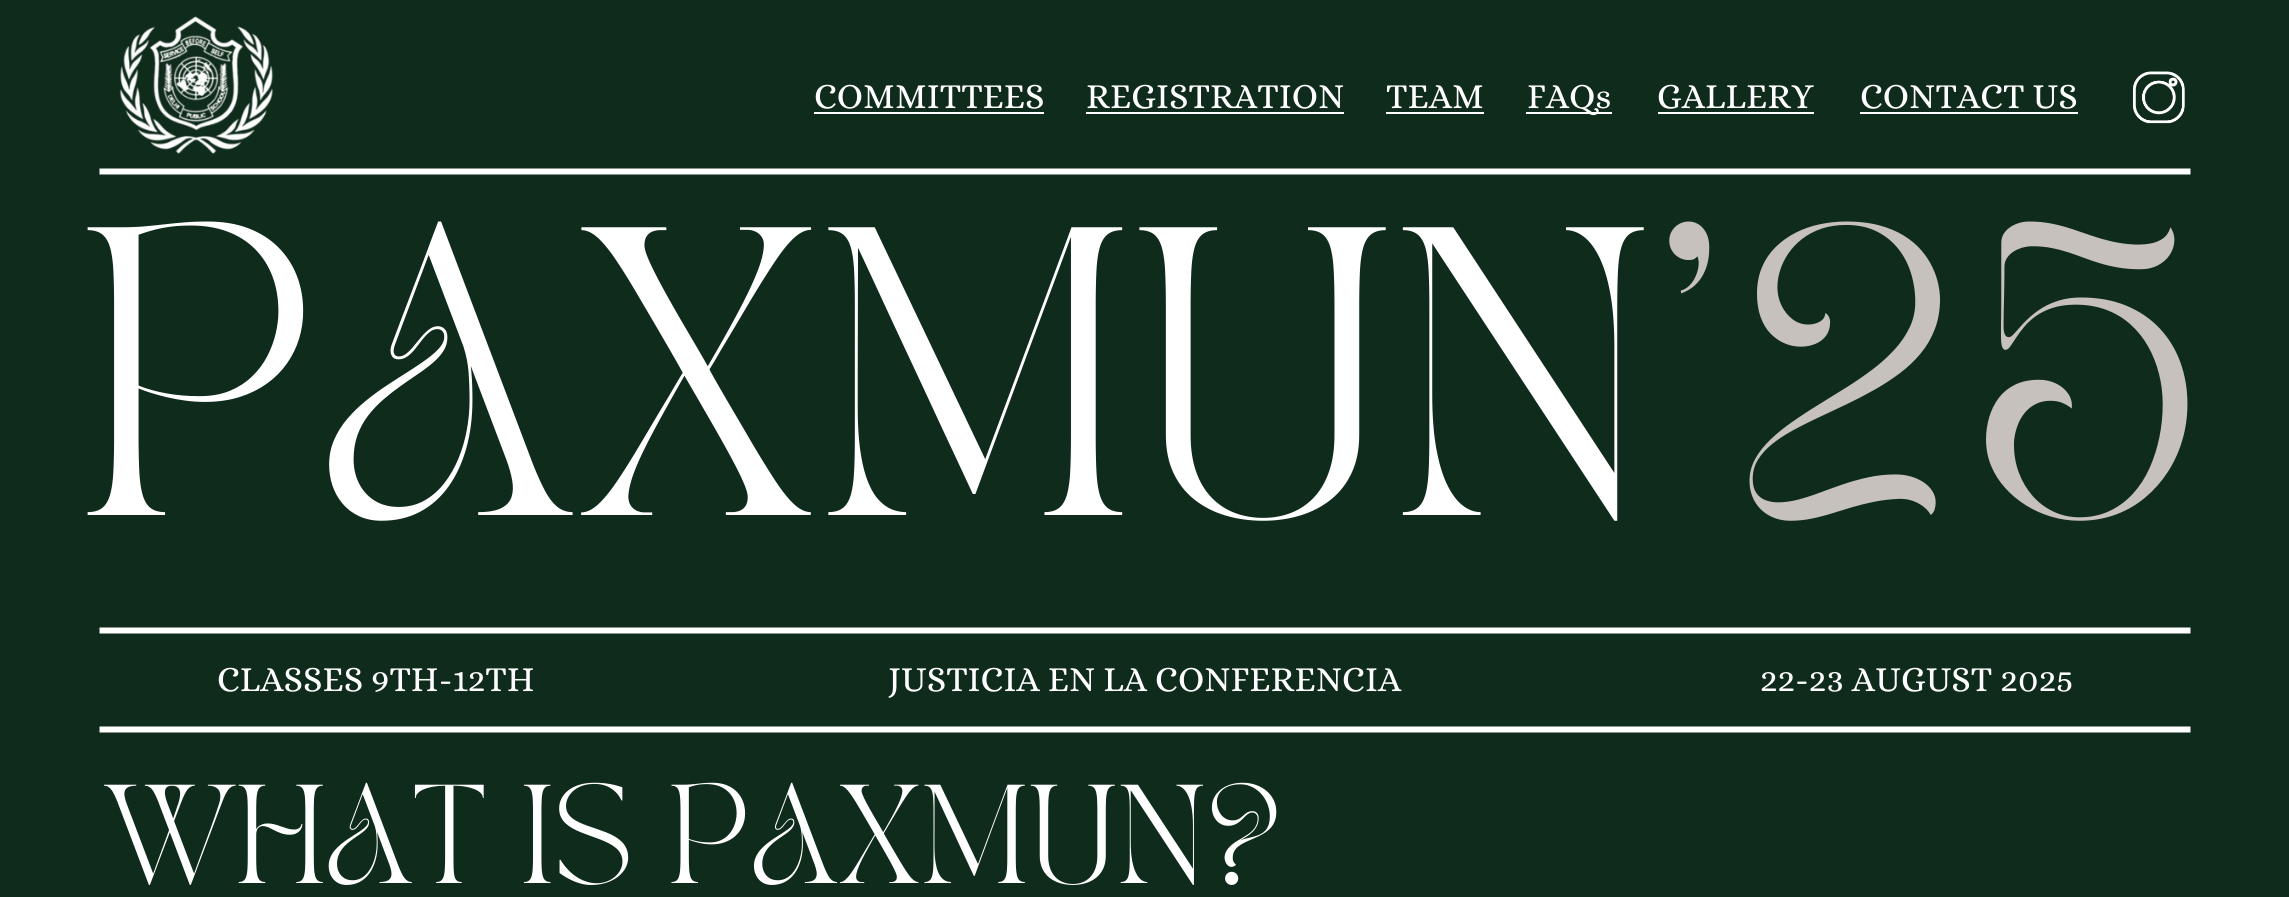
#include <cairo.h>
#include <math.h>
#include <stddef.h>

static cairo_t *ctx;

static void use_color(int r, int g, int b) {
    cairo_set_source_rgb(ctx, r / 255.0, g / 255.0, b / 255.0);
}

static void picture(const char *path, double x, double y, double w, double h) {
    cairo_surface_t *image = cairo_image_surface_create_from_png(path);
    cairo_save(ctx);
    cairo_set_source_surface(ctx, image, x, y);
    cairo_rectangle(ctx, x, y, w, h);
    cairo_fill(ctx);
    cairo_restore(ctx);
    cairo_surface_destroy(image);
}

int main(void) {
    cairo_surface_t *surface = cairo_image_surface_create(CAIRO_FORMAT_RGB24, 2289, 897);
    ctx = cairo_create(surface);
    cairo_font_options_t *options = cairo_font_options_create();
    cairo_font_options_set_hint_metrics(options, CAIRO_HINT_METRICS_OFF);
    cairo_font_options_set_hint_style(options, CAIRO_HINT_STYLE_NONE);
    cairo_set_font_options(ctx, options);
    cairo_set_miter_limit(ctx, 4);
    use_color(15, 43, 27);
    cairo_paint(ctx);
    picture("img1.png", 119, 16, 155, 138);
    cairo_select_font_face(ctx, "Alice", CAIRO_FONT_SLANT_NORMAL, CAIRO_FONT_WEIGHT_NORMAL);
    cairo_set_font_size(ctx, 35.75);
    use_color(255, 255, 255);
    cairo_move_to(ctx, 814, 108);
    cairo_show_text(ctx, "COMMITTEES");
    cairo_rectangle(ctx, 814, 112, 230, 2);
    cairo_fill(ctx);
    cairo_move_to(ctx, 1086, 108);
    cairo_show_text(ctx, "REGISTRATION");
    cairo_rectangle(ctx, 1086, 112, 258, 2);
    cairo_fill(ctx);
    cairo_move_to(ctx, 1386, 108);
    cairo_show_text(ctx, "TEAM");
    cairo_rectangle(ctx, 1386, 112, 98, 2);
    cairo_fill(ctx);
    cairo_rectangle(ctx, 1526, 112, 86, 2);
    cairo_fill(ctx);
    cairo_move_to(ctx, 1527, 108);
    cairo_show_text(ctx, "FAQs");
    cairo_move_to(ctx, 1657, 108);
    cairo_show_text(ctx, "GALLERY");
    cairo_rectangle(ctx, 1658, 112, 156, 2);
    cairo_fill(ctx);
    cairo_move_to(ctx, 1860, 108);
    cairo_show_text(ctx, "CONTACT US");
    cairo_rectangle(ctx, 1860, 112, 218, 2);
    cairo_fill(ctx);
    picture("img2.png", 2132, 71, 53, 53);
    cairo_new_path(ctx);
    cairo_move_to(ctx, 99.5, 171.5);
    cairo_line_to(ctx, 2190.5, 171.5);
    cairo_set_line_width(ctx, 6);
    cairo_stroke(ctx);
    cairo_select_font_face(ctx, "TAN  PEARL", CAIRO_FONT_SLANT_NORMAL, CAIRO_FONT_WEIGHT_NORMAL);
    cairo_set_font_size(ctx, 287.75);
    cairo_move_to(ctx, 79, 515);
    cairo_show_text(ctx, "PAXMUN");
    use_color(198, 193, 189);
    cairo_move_to(ctx, 1652, 515);
    cairo_show_text(ctx, "’25");
    cairo_new_path(ctx);
    cairo_move_to(ctx, 99.5, 630.5);
    cairo_line_to(ctx, 2190.5, 630.5);
    use_color(255, 255, 255);
    cairo_stroke(ctx);
    cairo_select_font_face(ctx, "Alice", CAIRO_FONT_SLANT_NORMAL, CAIRO_FONT_WEIGHT_NORMAL);
    cairo_set_font_size(ctx, 35.75);
    cairo_move_to(ctx, 217, 691);
    cairo_show_text(ctx, "CLASSES 9TH-12TH");
    cairo_move_to(ctx, 888, 691);
    cairo_show_text(ctx, "JUSTICIA EN LA CONFERENCIA");
    cairo_move_to(ctx, 1760, 691);
    cairo_show_text(ctx, "22-23 AUGUST 2025");
    cairo_new_path(ctx);
    cairo_move_to(ctx, 99.5, 729.5);
    cairo_line_to(ctx, 2190.5, 729.5);
    cairo_stroke(ctx);
    cairo_select_font_face(ctx, "TAN  PEARL", CAIRO_FONT_SLANT_NORMAL, CAIRO_FONT_WEIGHT_NORMAL);
    cairo_set_font_size(ctx, 98.3);
    cairo_move_to(ctx, 104, 883);
    cairo_show_text(ctx, "WHAT IS PAXMUN?");
    cairo_surface_write_to_png(surface, "result.png");
    cairo_font_options_destroy(options);
    cairo_destroy(ctx);
    cairo_surface_destroy(surface);
    return 0;
}
